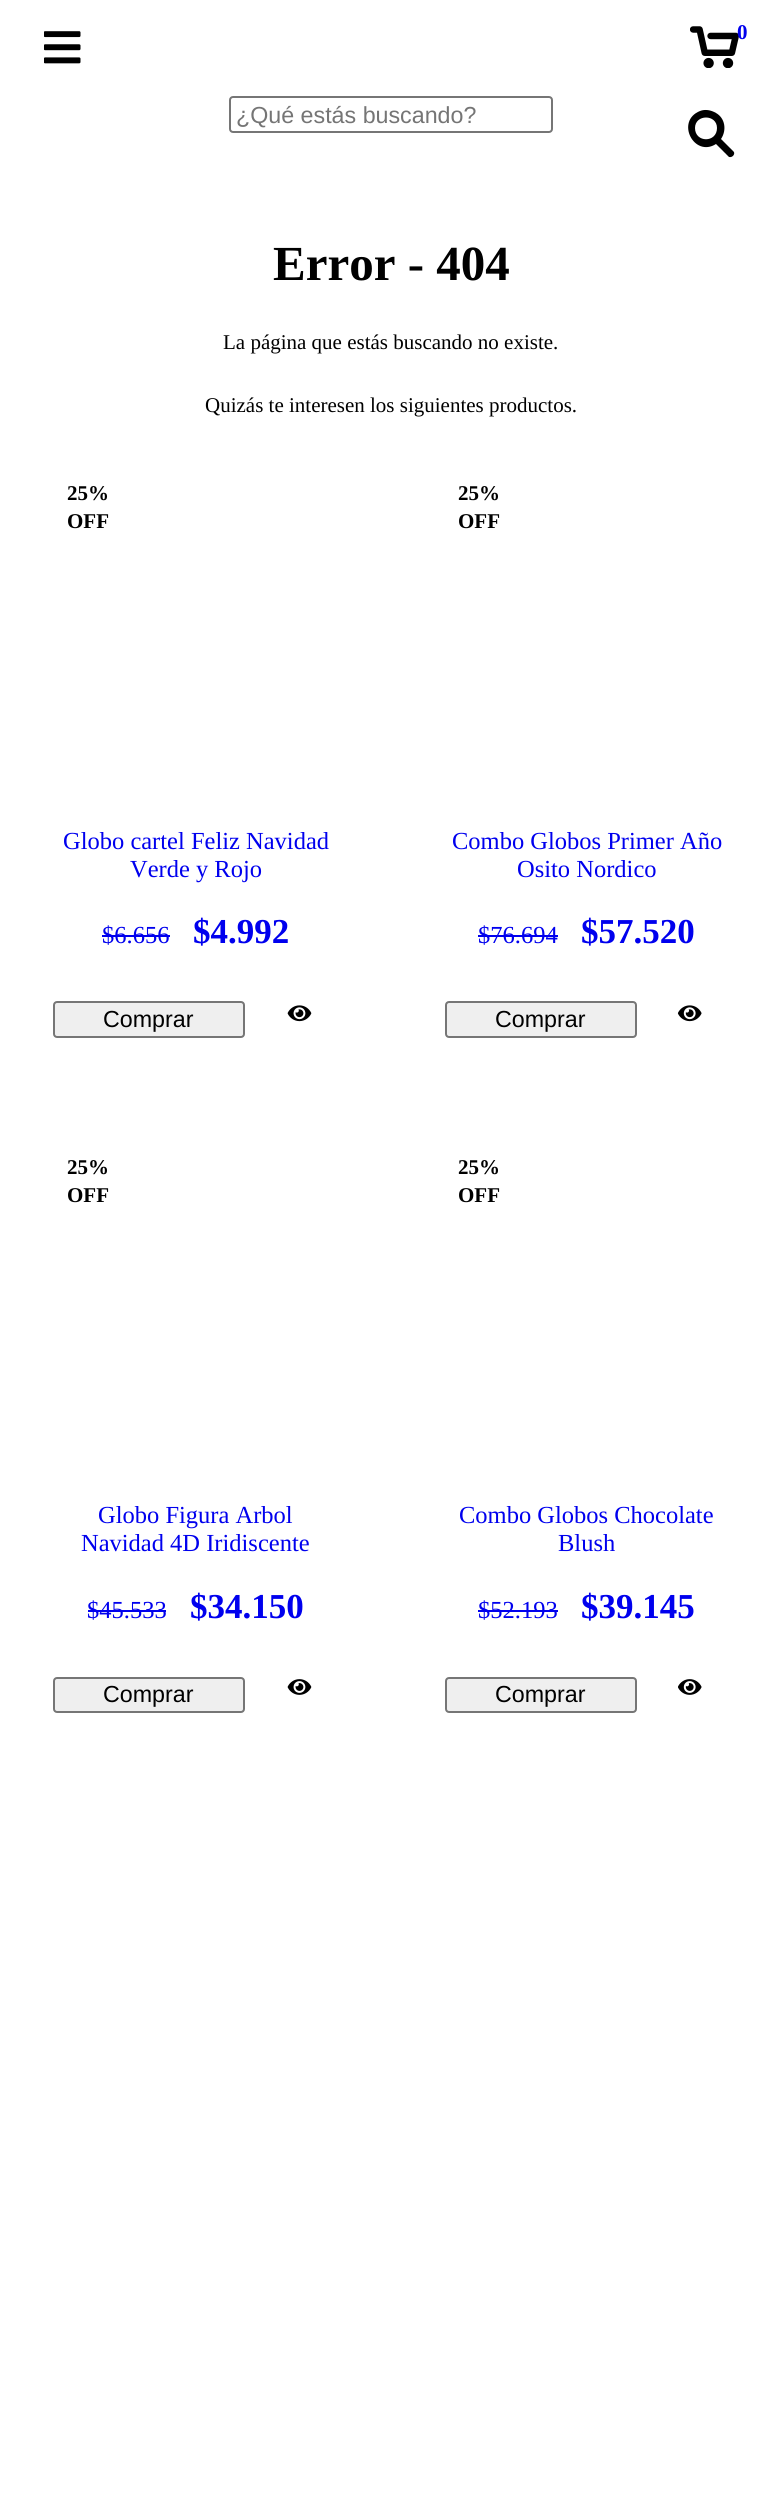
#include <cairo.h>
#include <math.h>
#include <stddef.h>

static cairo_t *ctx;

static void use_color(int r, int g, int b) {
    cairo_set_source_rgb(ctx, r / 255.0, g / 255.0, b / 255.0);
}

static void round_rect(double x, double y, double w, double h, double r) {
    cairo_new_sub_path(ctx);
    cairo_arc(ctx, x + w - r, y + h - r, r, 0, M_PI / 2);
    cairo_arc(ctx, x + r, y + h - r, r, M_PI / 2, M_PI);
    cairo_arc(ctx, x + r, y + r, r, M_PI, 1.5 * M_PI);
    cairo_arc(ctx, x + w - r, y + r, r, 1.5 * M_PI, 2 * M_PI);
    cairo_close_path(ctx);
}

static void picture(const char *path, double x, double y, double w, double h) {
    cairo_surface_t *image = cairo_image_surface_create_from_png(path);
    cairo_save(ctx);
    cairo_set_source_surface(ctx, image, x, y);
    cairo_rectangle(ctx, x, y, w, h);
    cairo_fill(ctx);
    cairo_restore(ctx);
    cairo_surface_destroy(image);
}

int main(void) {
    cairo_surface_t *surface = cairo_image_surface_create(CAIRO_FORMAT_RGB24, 781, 2520);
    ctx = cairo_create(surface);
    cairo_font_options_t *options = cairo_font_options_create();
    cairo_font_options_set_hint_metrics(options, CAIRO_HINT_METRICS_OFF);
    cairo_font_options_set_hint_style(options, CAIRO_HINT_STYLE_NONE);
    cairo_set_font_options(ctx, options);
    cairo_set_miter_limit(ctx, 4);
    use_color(255, 255, 255);
    cairo_paint(ctx);
    picture("img1.png", 44, 31, 37, 33);
    picture("img2.png", 690, 26, 49, 42);
    cairo_select_font_face(ctx, "Liberation Serif", CAIRO_FONT_SLANT_NORMAL, CAIRO_FONT_WEIGHT_BOLD);
    cairo_set_font_size(ctx, 21);
    use_color(0, 0, 238);
    cairo_move_to(ctx, 737, 39);
    cairo_show_text(ctx, "0");
    round_rect(230, 97, 322, 35, 3);
    use_color(118, 118, 118);
    cairo_stroke(ctx);
    cairo_select_font_face(ctx, "Liberation Sans", CAIRO_FONT_SLANT_NORMAL, CAIRO_FONT_WEIGHT_NORMAL);
    cairo_set_font_size(ctx, 23.25);
    use_color(117, 117, 117);
    cairo_move_to(ctx, 236, 123);
    cairo_show_text(ctx, "¿Qué estás buscando?");
    use_color(0, 0, 0);
    cairo_new_path(ctx);
    cairo_move_to(ctx, 733, 151);
    cairo_line_to(ctx, 721, 139);
    cairo_curve_to(ctx, 727, 130, 725, 118, 716, 113);
    cairo_curve_to(ctx, 711, 110, 705, 109, 700, 111);
    cairo_curve_to(ctx, 675, 121, 694, 158, 716, 144);
    cairo_line_to(ctx, 729, 157);
    cairo_curve_to(ctx, 733, 158, 736, 153, 733, 151);
    cairo_close_path(ctx);
    cairo_move_to(ctx, 695, 128);
    cairo_curve_to(ctx, 695, 114, 717, 114, 717, 128);
    cairo_curve_to(ctx, 717, 143, 695, 143, 695, 128);
    cairo_close_path(ctx);
    cairo_fill(ctx);
    cairo_select_font_face(ctx, "Liberation Serif", CAIRO_FONT_SLANT_NORMAL, CAIRO_FONT_WEIGHT_BOLD);
    cairo_set_font_size(ctx, 49);
    cairo_move_to(ctx, 273, 280);
    cairo_show_text(ctx, "Error - 404");
    cairo_select_font_face(ctx, "Liberation Serif", CAIRO_FONT_SLANT_NORMAL, CAIRO_FONT_WEIGHT_NORMAL);
    cairo_set_font_size(ctx, 21);
    cairo_move_to(ctx, 223, 349);
    cairo_show_text(ctx, "La página que estás buscando no existe.");
    cairo_move_to(ctx, 205, 412);
    cairo_show_text(ctx, "Quizás te interesen los siguientes productos.");
    cairo_select_font_face(ctx, "Liberation Serif", CAIRO_FONT_SLANT_NORMAL, CAIRO_FONT_WEIGHT_BOLD);
    cairo_move_to(ctx, 67, 500);
    cairo_show_text(ctx, "25%");
    cairo_move_to(ctx, 67, 528);
    cairo_show_text(ctx, "OFF");
    cairo_select_font_face(ctx, "Liberation Serif", CAIRO_FONT_SLANT_NORMAL, CAIRO_FONT_WEIGHT_NORMAL);
    cairo_set_font_size(ctx, 24.5);
    use_color(0, 0, 238);
    cairo_move_to(ctx, 63, 849);
    cairo_show_text(ctx, "Globo cartel Feliz Navidad");
    cairo_move_to(ctx, 130, 877);
    cairo_show_text(ctx, "Verde y Rojo");
    cairo_move_to(ctx, 102, 943);
    cairo_show_text(ctx, "$6.656");
    cairo_rectangle(ctx, 102, 935, 68, 2);
    cairo_fill(ctx);
    cairo_select_font_face(ctx, "Liberation Serif", CAIRO_FONT_SLANT_NORMAL, CAIRO_FONT_WEIGHT_BOLD);
    cairo_set_font_size(ctx, 35);
    cairo_move_to(ctx, 193, 943);
    cairo_show_text(ctx, "$4.992");
    use_color(239, 239, 239);
    round_rect(54, 1002, 190, 35, 3);
    cairo_fill_preserve(ctx);
    use_color(118, 118, 118);
    cairo_stroke(ctx);
    cairo_select_font_face(ctx, "Liberation Sans", CAIRO_FONT_SLANT_NORMAL, CAIRO_FONT_WEIGHT_NORMAL);
    cairo_set_font_size(ctx, 23.25);
    use_color(0, 0, 0);
    cairo_move_to(ctx, 103, 1027);
    cairo_show_text(ctx, "Comprar");
    picture("img3.png", 287, 1005, 25, 17);
    cairo_select_font_face(ctx, "Liberation Serif", CAIRO_FONT_SLANT_NORMAL, CAIRO_FONT_WEIGHT_BOLD);
    cairo_set_font_size(ctx, 21);
    cairo_move_to(ctx, 458, 500);
    cairo_show_text(ctx, "25%");
    cairo_move_to(ctx, 458, 528);
    cairo_show_text(ctx, "OFF");
    cairo_select_font_face(ctx, "Liberation Serif", CAIRO_FONT_SLANT_NORMAL, CAIRO_FONT_WEIGHT_NORMAL);
    cairo_set_font_size(ctx, 24.5);
    use_color(0, 0, 238);
    cairo_move_to(ctx, 452, 849);
    cairo_show_text(ctx, "Combo Globos Primer Año");
    cairo_move_to(ctx, 517, 877);
    cairo_show_text(ctx, "Osito Nordico");
    cairo_move_to(ctx, 478, 943);
    cairo_show_text(ctx, "$76.694");
    cairo_rectangle(ctx, 478, 935, 80, 2);
    cairo_fill(ctx);
    cairo_select_font_face(ctx, "Liberation Serif", CAIRO_FONT_SLANT_NORMAL, CAIRO_FONT_WEIGHT_BOLD);
    cairo_set_font_size(ctx, 35);
    cairo_move_to(ctx, 581, 943);
    cairo_show_text(ctx, "$57.520");
    use_color(239, 239, 239);
    round_rect(446, 1002, 190, 35, 3);
    cairo_fill_preserve(ctx);
    use_color(118, 118, 118);
    cairo_stroke(ctx);
    cairo_select_font_face(ctx, "Liberation Sans", CAIRO_FONT_SLANT_NORMAL, CAIRO_FONT_WEIGHT_NORMAL);
    cairo_set_font_size(ctx, 23.25);
    use_color(0, 0, 0);
    cairo_move_to(ctx, 495, 1027);
    cairo_show_text(ctx, "Comprar");
    picture("img4.png", 677, 1005, 25, 17);
    cairo_select_font_face(ctx, "Liberation Serif", CAIRO_FONT_SLANT_NORMAL, CAIRO_FONT_WEIGHT_BOLD);
    cairo_set_font_size(ctx, 21);
    cairo_move_to(ctx, 67, 1174);
    cairo_show_text(ctx, "25%");
    cairo_move_to(ctx, 67, 1202);
    cairo_show_text(ctx, "OFF");
    cairo_select_font_face(ctx, "Liberation Serif", CAIRO_FONT_SLANT_NORMAL, CAIRO_FONT_WEIGHT_NORMAL);
    cairo_set_font_size(ctx, 24.5);
    use_color(0, 0, 238);
    cairo_move_to(ctx, 98, 1523);
    cairo_show_text(ctx, "Globo Figura Arbol");
    cairo_move_to(ctx, 81, 1551);
    cairo_show_text(ctx, "Navidad 4D Iridiscente");
    cairo_move_to(ctx, 87, 1618);
    cairo_show_text(ctx, "$45.533");
    cairo_rectangle(ctx, 88, 1610, 78, 2);
    cairo_fill(ctx);
    cairo_select_font_face(ctx, "Liberation Serif", CAIRO_FONT_SLANT_NORMAL, CAIRO_FONT_WEIGHT_BOLD);
    cairo_set_font_size(ctx, 35);
    cairo_move_to(ctx, 190, 1618);
    cairo_show_text(ctx, "$34.150");
    use_color(239, 239, 239);
    round_rect(54, 1678, 190, 34, 3);
    cairo_fill_preserve(ctx);
    use_color(118, 118, 118);
    cairo_stroke(ctx);
    cairo_select_font_face(ctx, "Liberation Sans", CAIRO_FONT_SLANT_NORMAL, CAIRO_FONT_WEIGHT_NORMAL);
    cairo_set_font_size(ctx, 23.25);
    use_color(0, 0, 0);
    cairo_move_to(ctx, 103, 1702);
    cairo_show_text(ctx, "Comprar");
    picture("img5.png", 287, 1679, 25, 16);
    cairo_select_font_face(ctx, "Liberation Serif", CAIRO_FONT_SLANT_NORMAL, CAIRO_FONT_WEIGHT_BOLD);
    cairo_set_font_size(ctx, 21);
    cairo_move_to(ctx, 458, 1174);
    cairo_show_text(ctx, "25%");
    cairo_move_to(ctx, 458, 1202);
    cairo_show_text(ctx, "OFF");
    cairo_select_font_face(ctx, "Liberation Serif", CAIRO_FONT_SLANT_NORMAL, CAIRO_FONT_WEIGHT_NORMAL);
    cairo_set_font_size(ctx, 24.5);
    use_color(0, 0, 238);
    cairo_move_to(ctx, 459, 1523);
    cairo_show_text(ctx, "Combo Globos Chocolate");
    cairo_move_to(ctx, 558, 1551);
    cairo_show_text(ctx, "Blush");
    cairo_move_to(ctx, 478, 1618);
    cairo_show_text(ctx, "$52.193");
    cairo_rectangle(ctx, 478, 1610, 80, 2);
    cairo_fill(ctx);
    cairo_select_font_face(ctx, "Liberation Serif", CAIRO_FONT_SLANT_NORMAL, CAIRO_FONT_WEIGHT_BOLD);
    cairo_set_font_size(ctx, 35);
    cairo_move_to(ctx, 581, 1618);
    cairo_show_text(ctx, "$39.145");
    use_color(239, 239, 239);
    round_rect(446, 1678, 190, 34, 3);
    cairo_fill_preserve(ctx);
    use_color(118, 118, 118);
    cairo_stroke(ctx);
    cairo_select_font_face(ctx, "Liberation Sans", CAIRO_FONT_SLANT_NORMAL, CAIRO_FONT_WEIGHT_NORMAL);
    cairo_set_font_size(ctx, 23.25);
    use_color(0, 0, 0);
    cairo_move_to(ctx, 495, 1702);
    cairo_show_text(ctx, "Comprar");
    picture("img6.png", 678, 1679, 24, 16);
    cairo_surface_write_to_png(surface, "result.png");
    cairo_font_options_destroy(options);
    cairo_destroy(ctx);
    cairo_surface_destroy(surface);
    return 0;
}
